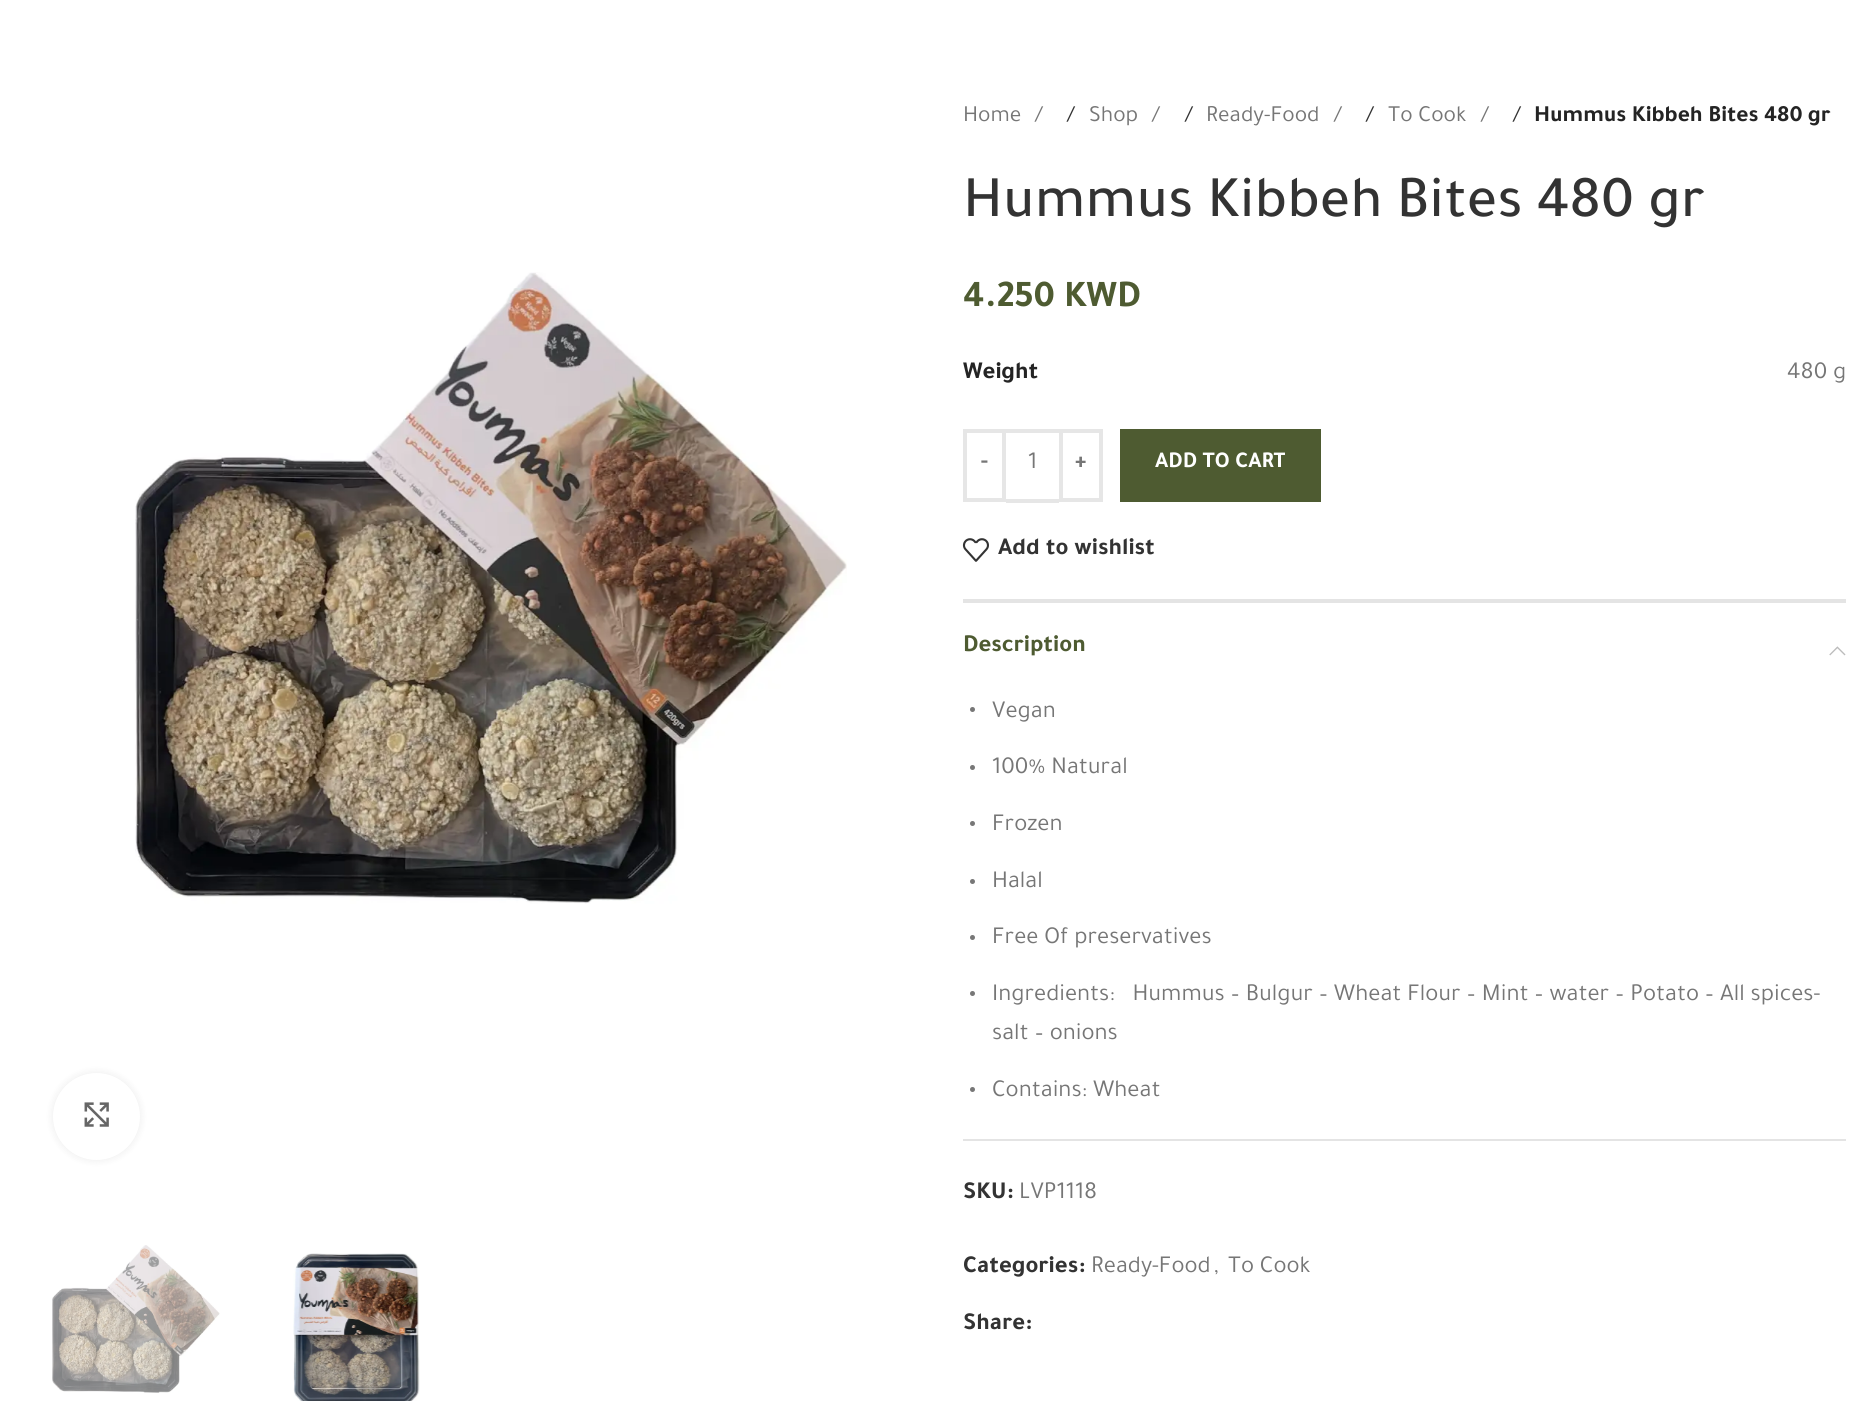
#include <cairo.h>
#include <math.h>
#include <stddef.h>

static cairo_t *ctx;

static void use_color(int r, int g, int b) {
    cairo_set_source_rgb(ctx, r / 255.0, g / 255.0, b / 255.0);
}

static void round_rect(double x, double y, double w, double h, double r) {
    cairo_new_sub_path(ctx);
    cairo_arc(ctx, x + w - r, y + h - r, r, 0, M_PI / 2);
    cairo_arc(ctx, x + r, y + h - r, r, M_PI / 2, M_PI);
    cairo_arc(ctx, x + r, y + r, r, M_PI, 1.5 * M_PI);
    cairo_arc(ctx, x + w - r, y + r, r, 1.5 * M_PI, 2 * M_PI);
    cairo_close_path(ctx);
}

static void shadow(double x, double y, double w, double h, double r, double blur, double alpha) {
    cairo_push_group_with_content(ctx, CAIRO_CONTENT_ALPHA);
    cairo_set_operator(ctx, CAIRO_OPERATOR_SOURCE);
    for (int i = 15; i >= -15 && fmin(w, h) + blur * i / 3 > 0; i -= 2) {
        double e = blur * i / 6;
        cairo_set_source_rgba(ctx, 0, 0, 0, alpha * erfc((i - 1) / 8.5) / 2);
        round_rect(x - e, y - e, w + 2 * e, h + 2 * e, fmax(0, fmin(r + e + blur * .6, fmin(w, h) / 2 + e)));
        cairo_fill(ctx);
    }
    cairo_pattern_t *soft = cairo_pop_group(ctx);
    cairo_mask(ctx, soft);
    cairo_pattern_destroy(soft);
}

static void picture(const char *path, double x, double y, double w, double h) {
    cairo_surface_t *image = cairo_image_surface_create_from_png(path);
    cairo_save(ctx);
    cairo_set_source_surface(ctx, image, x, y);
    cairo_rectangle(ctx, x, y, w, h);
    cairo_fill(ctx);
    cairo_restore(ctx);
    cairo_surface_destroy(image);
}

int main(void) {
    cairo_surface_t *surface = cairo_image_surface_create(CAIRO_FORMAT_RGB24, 1871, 1401);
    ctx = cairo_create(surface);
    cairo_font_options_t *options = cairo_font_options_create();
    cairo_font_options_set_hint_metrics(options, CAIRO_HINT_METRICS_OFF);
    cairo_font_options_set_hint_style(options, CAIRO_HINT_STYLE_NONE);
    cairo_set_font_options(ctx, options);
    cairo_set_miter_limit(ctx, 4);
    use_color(255, 255, 255);
    cairo_paint(ctx);
    picture("img1.png", 135, 272, 712, 632);
    use_color(0, 0, 0);
    shadow(53, 1073, 87, 87, 43.5, 4.5, 0.08);
    use_color(255, 255, 255);
    cairo_arc(ctx, 96.5, 1116.5, 43.5, 0, 2 * M_PI);
    cairo_fill(ctx);
    picture("img2.png", 84, 1102, 25, 25);
    picture("img3.png", 52, 1245, 168, 148);
    picture("img4.png", 293, 1253, 127, 148);
    cairo_select_font_face(ctx, "Tajawal", CAIRO_FONT_SLANT_NORMAL, CAIRO_FONT_WEIGHT_NORMAL);
    cairo_set_font_size(ctx, 23.25);
    use_color(118, 118, 118);
    cairo_move_to(ctx, 963, 121);
    cairo_show_text(ctx, "Home");
    cairo_move_to(ctx, 1035, 121);
    cairo_show_text(ctx, "/");
    use_color(51, 51, 51);
    cairo_move_to(ctx, 1067, 121);
    cairo_show_text(ctx, "/");
    use_color(118, 118, 118);
    cairo_move_to(ctx, 1089, 121);
    cairo_show_text(ctx, "Shop");
    cairo_move_to(ctx, 1152, 121);
    cairo_show_text(ctx, "/");
    use_color(51, 51, 51);
    cairo_move_to(ctx, 1185, 121);
    cairo_show_text(ctx, "/");
    use_color(118, 118, 118);
    cairo_move_to(ctx, 1206, 121);
    cairo_show_text(ctx, "Ready-Food");
    cairo_move_to(ctx, 1334, 121);
    cairo_show_text(ctx, "/");
    use_color(51, 51, 51);
    cairo_move_to(ctx, 1366, 121);
    cairo_show_text(ctx, "/");
    use_color(118, 118, 118);
    cairo_move_to(ctx, 1388, 121);
    cairo_show_text(ctx, "To Cook");
    cairo_move_to(ctx, 1481, 121);
    cairo_show_text(ctx, "/");
    use_color(51, 51, 51);
    cairo_move_to(ctx, 1513, 121);
    cairo_show_text(ctx, "/");
    cairo_select_font_face(ctx, "Tajawal", CAIRO_FONT_SLANT_NORMAL, CAIRO_FONT_WEIGHT_BOLD);
    use_color(36, 36, 36);
    cairo_move_to(ctx, 1534, 121);
    cairo_show_text(ctx, "Hummus Kibbeh Bites 480 gr");
    cairo_select_font_face(ctx, "Tajawal Medium", CAIRO_FONT_SLANT_NORMAL, CAIRO_FONT_WEIGHT_NORMAL);
    cairo_set_font_size(ctx, 59.5);
    use_color(51, 51, 51);
    cairo_move_to(ctx, 963, 216);
    cairo_show_text(ctx, "Hummus Kibbeh Bites 480 gr");
    cairo_select_font_face(ctx, "Tajawal", CAIRO_FONT_SLANT_NORMAL, CAIRO_FONT_WEIGHT_BOLD);
    cairo_set_font_size(ctx, 38);
    use_color(78, 91, 49);
    cairo_move_to(ctx, 963, 306);
    cairo_show_text(ctx, "4.250 KWD");
    cairo_set_font_size(ctx, 24.5);
    use_color(36, 36, 36);
    cairo_move_to(ctx, 963, 378);
    cairo_show_text(ctx, "Weight");
    cairo_select_font_face(ctx, "Tajawal", CAIRO_FONT_SLANT_NORMAL, CAIRO_FONT_WEIGHT_NORMAL);
    use_color(118, 118, 118);
    cairo_move_to(ctx, 1787, 378);
    cairo_show_text(ctx, "480 g");
    cairo_rectangle(ctx, 965, 431, 39, 69);
    use_color(230, 230, 230);
    cairo_set_line_width(ctx, 4);
    cairo_stroke(ctx);
    cairo_select_font_face(ctx, "Tajawal", CAIRO_FONT_SLANT_NORMAL, CAIRO_FONT_WEIGHT_BOLD);
    cairo_set_font_size(ctx, 22.75);
    use_color(118, 118, 118);
    cairo_move_to(ctx, 981, 467);
    cairo_show_text(ctx, "-");
    use_color(230, 230, 230);
    cairo_rectangle(ctx, 1006, 429, 53, 4);
    cairo_fill(ctx);
    cairo_rectangle(ctx, 1006, 499, 53, 4);
    cairo_fill(ctx);
    cairo_select_font_face(ctx, "Tajawal", CAIRO_FONT_SLANT_NORMAL, CAIRO_FONT_WEIGHT_NORMAL);
    cairo_set_font_size(ctx, 24.5);
    use_color(118, 118, 118);
    cairo_move_to(ctx, 1028, 468);
    cairo_show_text(ctx, "1");
    cairo_rectangle(ctx, 1061, 431, 40, 69);
    use_color(230, 230, 230);
    cairo_stroke(ctx);
    cairo_select_font_face(ctx, "Tajawal", CAIRO_FONT_SLANT_NORMAL, CAIRO_FONT_WEIGHT_BOLD);
    cairo_set_font_size(ctx, 22.75);
    use_color(118, 118, 118);
    cairo_move_to(ctx, 1075, 467);
    cairo_show_text(ctx, "+");
    use_color(78, 91, 49);
    cairo_rectangle(ctx, 1120, 429, 201, 73);
    cairo_fill(ctx);
    use_color(255, 255, 255);
    cairo_move_to(ctx, 1155, 467);
    cairo_show_text(ctx, "ADD TO CART");
    picture("img5.png", 962, 538, 27, 24);
    cairo_set_font_size(ctx, 24.5);
    use_color(51, 51, 51);
    cairo_move_to(ctx, 998, 554);
    cairo_show_text(ctx, "Add to wishlist");
    use_color(228, 228, 228);
    cairo_rectangle(ctx, 963, 599, 883, 4);
    cairo_fill(ctx);
    cairo_rectangle(ctx, 963, 1139, 883, 2);
    cairo_fill(ctx);
    use_color(78, 91, 49);
    cairo_move_to(ctx, 963, 651);
    cairo_show_text(ctx, "Description");
    picture("img6.png", 1829, 646, 17, 10);
    use_color(119, 119, 119);
    cairo_arc(ctx, 972.5, 709.5, 2.5, 0, 2 * M_PI);
    cairo_fill(ctx);
    cairo_select_font_face(ctx, "Tajawal", CAIRO_FONT_SLANT_NORMAL, CAIRO_FONT_WEIGHT_NORMAL);
    use_color(118, 118, 118);
    cairo_move_to(ctx, 992, 717);
    cairo_show_text(ctx, "Vegan");
    use_color(119, 119, 119);
    cairo_new_path(ctx);
    cairo_arc(ctx, 972.5, 767.5, 2.5, 0, 2 * M_PI);
    cairo_fill(ctx);
    use_color(118, 118, 118);
    cairo_move_to(ctx, 992, 773);
    cairo_show_text(ctx, "100% Natural");
    use_color(119, 119, 119);
    cairo_new_path(ctx);
    cairo_arc(ctx, 972.5, 823.5, 2.5, 0, 2 * M_PI);
    cairo_fill(ctx);
    use_color(118, 118, 118);
    cairo_move_to(ctx, 992, 830);
    cairo_show_text(ctx, "Frozen");
    use_color(119, 119, 119);
    cairo_new_path(ctx);
    cairo_arc(ctx, 972.5, 881.5, 2.5, 0, 2 * M_PI);
    cairo_fill(ctx);
    use_color(118, 118, 118);
    cairo_move_to(ctx, 992, 887);
    cairo_show_text(ctx, "Halal");
    use_color(119, 119, 119);
    cairo_new_path(ctx);
    cairo_arc(ctx, 972.5, 937.5, 2.5, 0, 2 * M_PI);
    cairo_fill(ctx);
    use_color(118, 118, 118);
    cairo_move_to(ctx, 992, 943);
    cairo_show_text(ctx, "Free Of preservatives");
    use_color(119, 119, 119);
    cairo_new_path(ctx);
    cairo_arc(ctx, 972.5, 993.5, 2.5, 0, 2 * M_PI);
    cairo_fill(ctx);
    use_color(118, 118, 118);
    cairo_move_to(ctx, 992, 1000);
    cairo_show_text(ctx, "Ingredients:   Hummus – Bulgur – Wheat Flour – Mint – water – Potato – All spices-");
    cairo_move_to(ctx, 992, 1039);
    cairo_show_text(ctx, "salt – onions");
    use_color(119, 119, 119);
    cairo_new_path(ctx);
    cairo_arc(ctx, 972.5, 1089.5, 2.5, 0, 2 * M_PI);
    cairo_fill(ctx);
    use_color(118, 118, 118);
    cairo_move_to(ctx, 992, 1096);
    cairo_show_text(ctx, "Contains: Wheat");
    cairo_select_font_face(ctx, "Tajawal", CAIRO_FONT_SLANT_NORMAL, CAIRO_FONT_WEIGHT_BOLD);
    use_color(51, 51, 51);
    cairo_move_to(ctx, 963, 1198);
    cairo_show_text(ctx, "SKU:");
    cairo_select_font_face(ctx, "Tajawal", CAIRO_FONT_SLANT_NORMAL, CAIRO_FONT_WEIGHT_NORMAL);
    use_color(118, 118, 118);
    cairo_move_to(ctx, 1019, 1198);
    cairo_show_text(ctx, "LVP1118");
    cairo_select_font_face(ctx, "Tajawal", CAIRO_FONT_SLANT_NORMAL, CAIRO_FONT_WEIGHT_BOLD);
    use_color(51, 51, 51);
    cairo_move_to(ctx, 963, 1272);
    cairo_show_text(ctx, "Categories:");
    cairo_select_font_face(ctx, "Tajawal", CAIRO_FONT_SLANT_NORMAL, CAIRO_FONT_WEIGHT_NORMAL);
    use_color(118, 118, 118);
    cairo_move_to(ctx, 1091, 1272);
    cairo_show_text(ctx, "Ready-Food");
    cairo_move_to(ctx, 1214, 1272);
    cairo_show_text(ctx, ",");
    cairo_move_to(ctx, 1228, 1272);
    cairo_show_text(ctx, "To Cook");
    cairo_select_font_face(ctx, "Tajawal", CAIRO_FONT_SLANT_NORMAL, CAIRO_FONT_WEIGHT_BOLD);
    use_color(51, 51, 51);
    cairo_move_to(ctx, 963, 1329);
    cairo_show_text(ctx, "Share:");
    cairo_surface_write_to_png(surface, "result.png");
    cairo_font_options_destroy(options);
    cairo_destroy(ctx);
    cairo_surface_destroy(surface);
    return 0;
}
